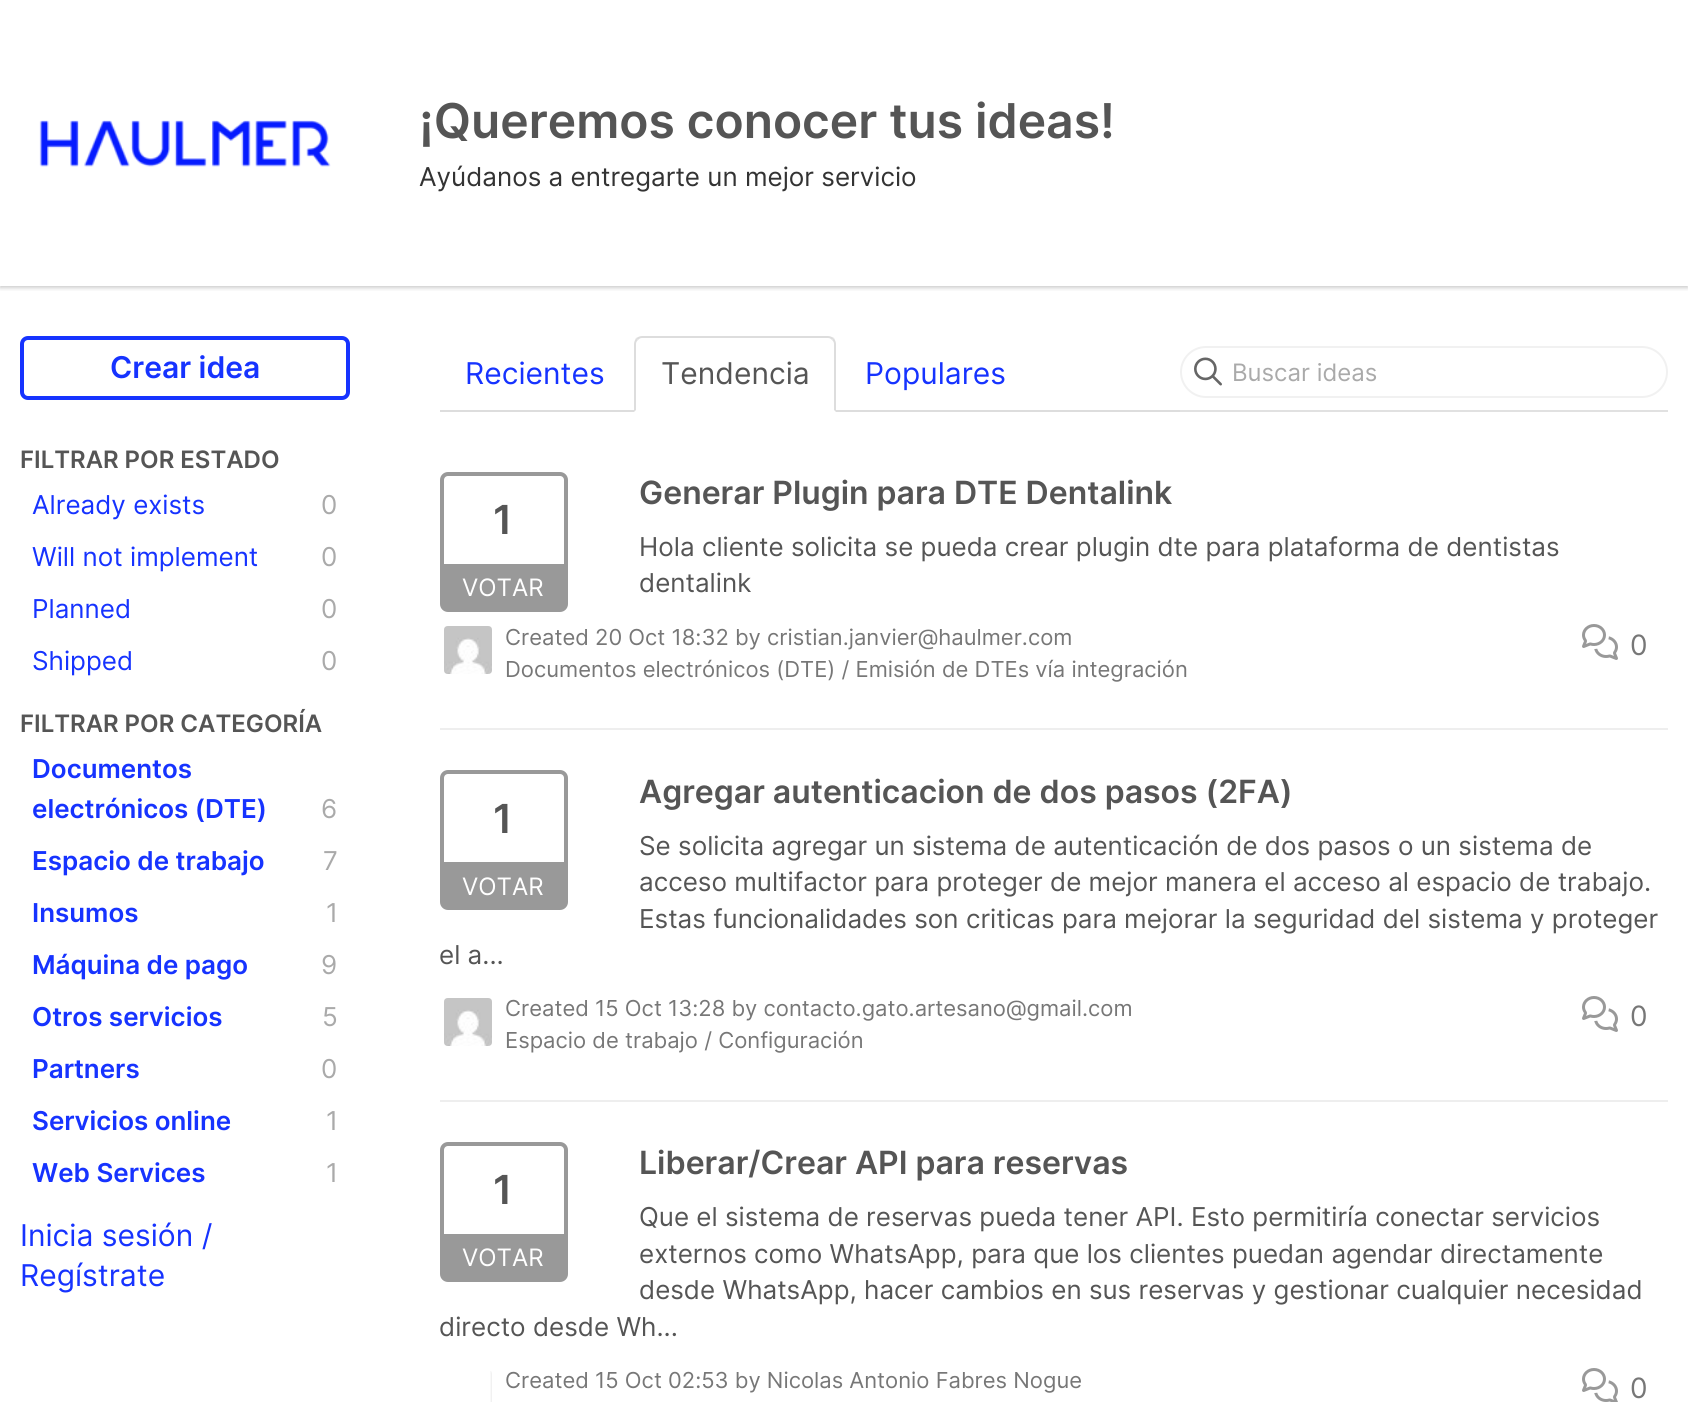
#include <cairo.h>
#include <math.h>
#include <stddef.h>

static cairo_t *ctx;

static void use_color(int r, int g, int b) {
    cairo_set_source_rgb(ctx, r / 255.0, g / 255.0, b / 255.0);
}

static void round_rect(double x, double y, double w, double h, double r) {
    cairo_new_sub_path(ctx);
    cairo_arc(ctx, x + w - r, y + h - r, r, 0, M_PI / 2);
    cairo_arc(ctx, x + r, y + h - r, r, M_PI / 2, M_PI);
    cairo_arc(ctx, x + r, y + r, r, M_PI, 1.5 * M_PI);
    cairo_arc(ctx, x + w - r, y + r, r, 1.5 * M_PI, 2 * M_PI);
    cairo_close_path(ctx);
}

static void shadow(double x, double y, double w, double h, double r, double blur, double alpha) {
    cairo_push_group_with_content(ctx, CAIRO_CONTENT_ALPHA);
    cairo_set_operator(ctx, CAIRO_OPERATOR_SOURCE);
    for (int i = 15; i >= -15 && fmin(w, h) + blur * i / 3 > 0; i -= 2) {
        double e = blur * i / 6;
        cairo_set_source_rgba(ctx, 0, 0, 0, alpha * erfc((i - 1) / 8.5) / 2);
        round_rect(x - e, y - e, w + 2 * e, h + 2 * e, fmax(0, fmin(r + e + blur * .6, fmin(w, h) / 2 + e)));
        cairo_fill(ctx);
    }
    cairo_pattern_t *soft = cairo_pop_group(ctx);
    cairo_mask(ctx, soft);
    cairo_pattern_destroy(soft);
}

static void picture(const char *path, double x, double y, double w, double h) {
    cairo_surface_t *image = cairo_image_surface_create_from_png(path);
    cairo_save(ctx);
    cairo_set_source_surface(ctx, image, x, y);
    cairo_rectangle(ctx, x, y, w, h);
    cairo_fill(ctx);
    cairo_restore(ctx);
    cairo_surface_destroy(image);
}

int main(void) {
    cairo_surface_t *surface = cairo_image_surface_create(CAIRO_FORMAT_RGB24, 1688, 1402);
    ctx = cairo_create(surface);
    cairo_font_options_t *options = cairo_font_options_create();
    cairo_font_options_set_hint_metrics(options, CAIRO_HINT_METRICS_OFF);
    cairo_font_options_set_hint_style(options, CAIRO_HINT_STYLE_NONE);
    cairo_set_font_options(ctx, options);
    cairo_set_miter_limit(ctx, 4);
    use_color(255, 255, 255);
    cairo_paint(ctx);
    cairo_save(ctx);
    cairo_rectangle(ctx, 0, 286, 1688, 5);
    cairo_clip(ctx);
    use_color(0, 0, 0);
    shadow(0, 2, 1688, 286, 0, 2, 0.2);
    cairo_restore(ctx);
    picture("img1.png", 39, 120, 292, 47);
    cairo_select_font_face(ctx, "Inter SemiBold", CAIRO_FONT_SLANT_NORMAL, CAIRO_FONT_WEIGHT_NORMAL);
    cairo_set_font_size(ctx, 48);
    use_color(85, 85, 85);
    cairo_move_to(ctx, 419, 138);
    cairo_show_text(ctx, "¡Queremos conocer tus ideas!");
    cairo_select_font_face(ctx, "Inter", CAIRO_FONT_SLANT_NORMAL, CAIRO_FONT_WEIGHT_NORMAL);
    cairo_set_font_size(ctx, 26);
    use_color(51, 51, 51);
    cairo_move_to(ctx, 419, 186);
    cairo_show_text(ctx, "Ayúdanos a entregarte un mejor servicio");
    round_rect(22, 338, 326, 60, 6);
    use_color(22, 51, 255);
    cairo_set_line_width(ctx, 4);
    cairo_stroke(ctx);
    cairo_select_font_face(ctx, "Inter SemiBold", CAIRO_FONT_SLANT_NORMAL, CAIRO_FONT_WEIGHT_NORMAL);
    cairo_set_font_size(ctx, 30);
    cairo_move_to(ctx, 110, 378);
    cairo_show_text(ctx, "Crear idea");
    cairo_set_font_size(ctx, 24);
    use_color(85, 85, 85);
    cairo_move_to(ctx, 20, 468);
    cairo_show_text(ctx, "FILTRAR POR ESTADO");
    cairo_select_font_face(ctx, "Inter", CAIRO_FONT_SLANT_NORMAL, CAIRO_FONT_WEIGHT_NORMAL);
    cairo_set_font_size(ctx, 26);
    use_color(22, 51, 255);
    cairo_move_to(ctx, 32, 514);
    cairo_show_text(ctx, "Already exists");
    use_color(170, 170, 170);
    cairo_move_to(ctx, 321, 514);
    cairo_show_text(ctx, "0");
    use_color(22, 51, 255);
    cairo_move_to(ctx, 32, 566);
    cairo_show_text(ctx, "Will not implement");
    use_color(170, 170, 170);
    cairo_move_to(ctx, 321, 566);
    cairo_show_text(ctx, "0");
    use_color(22, 51, 255);
    cairo_move_to(ctx, 32, 618);
    cairo_show_text(ctx, "Planned");
    use_color(170, 170, 170);
    cairo_move_to(ctx, 321, 618);
    cairo_show_text(ctx, "0");
    use_color(22, 51, 255);
    cairo_move_to(ctx, 32, 670);
    cairo_show_text(ctx, "Shipped");
    use_color(170, 170, 170);
    cairo_move_to(ctx, 321, 670);
    cairo_show_text(ctx, "0");
    cairo_select_font_face(ctx, "Inter SemiBold", CAIRO_FONT_SLANT_NORMAL, CAIRO_FONT_WEIGHT_NORMAL);
    cairo_set_font_size(ctx, 24);
    use_color(85, 85, 85);
    cairo_move_to(ctx, 20, 732);
    cairo_show_text(ctx, "FILTRAR POR CATEGORÍA");
    cairo_set_font_size(ctx, 26);
    use_color(22, 51, 255);
    cairo_move_to(ctx, 32, 778);
    cairo_show_text(ctx, "Documentos");
    cairo_move_to(ctx, 32, 818);
    cairo_show_text(ctx, "electrónicos (DTE)");
    cairo_select_font_face(ctx, "Inter", CAIRO_FONT_SLANT_NORMAL, CAIRO_FONT_WEIGHT_NORMAL);
    use_color(170, 170, 170);
    cairo_move_to(ctx, 321, 818);
    cairo_show_text(ctx, "6");
    cairo_select_font_face(ctx, "Inter SemiBold", CAIRO_FONT_SLANT_NORMAL, CAIRO_FONT_WEIGHT_NORMAL);
    use_color(22, 51, 255);
    cairo_move_to(ctx, 32, 870);
    cairo_show_text(ctx, "Espacio de trabajo");
    cairo_select_font_face(ctx, "Inter", CAIRO_FONT_SLANT_NORMAL, CAIRO_FONT_WEIGHT_NORMAL);
    use_color(170, 170, 170);
    cairo_move_to(ctx, 323, 870);
    cairo_show_text(ctx, "7");
    cairo_select_font_face(ctx, "Inter SemiBold", CAIRO_FONT_SLANT_NORMAL, CAIRO_FONT_WEIGHT_NORMAL);
    use_color(22, 51, 255);
    cairo_move_to(ctx, 32, 922);
    cairo_show_text(ctx, "Insumos");
    cairo_select_font_face(ctx, "Inter", CAIRO_FONT_SLANT_NORMAL, CAIRO_FONT_WEIGHT_NORMAL);
    use_color(170, 170, 170);
    cairo_move_to(ctx, 326, 922);
    cairo_show_text(ctx, "1");
    cairo_select_font_face(ctx, "Inter SemiBold", CAIRO_FONT_SLANT_NORMAL, CAIRO_FONT_WEIGHT_NORMAL);
    use_color(22, 51, 255);
    cairo_move_to(ctx, 32, 974);
    cairo_show_text(ctx, "Máquina de pago");
    cairo_select_font_face(ctx, "Inter", CAIRO_FONT_SLANT_NORMAL, CAIRO_FONT_WEIGHT_NORMAL);
    use_color(170, 170, 170);
    cairo_move_to(ctx, 321, 974);
    cairo_show_text(ctx, "9");
    cairo_select_font_face(ctx, "Inter SemiBold", CAIRO_FONT_SLANT_NORMAL, CAIRO_FONT_WEIGHT_NORMAL);
    use_color(22, 51, 255);
    cairo_move_to(ctx, 32, 1026);
    cairo_show_text(ctx, "Otros servicios");
    cairo_select_font_face(ctx, "Inter", CAIRO_FONT_SLANT_NORMAL, CAIRO_FONT_WEIGHT_NORMAL);
    use_color(170, 170, 170);
    cairo_move_to(ctx, 322, 1026);
    cairo_show_text(ctx, "5");
    cairo_select_font_face(ctx, "Inter SemiBold", CAIRO_FONT_SLANT_NORMAL, CAIRO_FONT_WEIGHT_NORMAL);
    use_color(22, 51, 255);
    cairo_move_to(ctx, 32, 1078);
    cairo_show_text(ctx, "Partners");
    cairo_select_font_face(ctx, "Inter", CAIRO_FONT_SLANT_NORMAL, CAIRO_FONT_WEIGHT_NORMAL);
    use_color(170, 170, 170);
    cairo_move_to(ctx, 321, 1078);
    cairo_show_text(ctx, "0");
    cairo_select_font_face(ctx, "Inter SemiBold", CAIRO_FONT_SLANT_NORMAL, CAIRO_FONT_WEIGHT_NORMAL);
    use_color(22, 51, 255);
    cairo_move_to(ctx, 32, 1130);
    cairo_show_text(ctx, "Servicios online");
    cairo_select_font_face(ctx, "Inter", CAIRO_FONT_SLANT_NORMAL, CAIRO_FONT_WEIGHT_NORMAL);
    use_color(170, 170, 170);
    cairo_move_to(ctx, 326, 1130);
    cairo_show_text(ctx, "1");
    cairo_select_font_face(ctx, "Inter SemiBold", CAIRO_FONT_SLANT_NORMAL, CAIRO_FONT_WEIGHT_NORMAL);
    use_color(22, 51, 255);
    cairo_move_to(ctx, 32, 1182);
    cairo_show_text(ctx, "Web Services");
    cairo_select_font_face(ctx, "Inter", CAIRO_FONT_SLANT_NORMAL, CAIRO_FONT_WEIGHT_NORMAL);
    use_color(170, 170, 170);
    cairo_move_to(ctx, 326, 1182);
    cairo_show_text(ctx, "1");
    cairo_set_font_size(ctx, 30);
    use_color(22, 51, 255);
    cairo_move_to(ctx, 20, 1246);
    cairo_show_text(ctx, "Inicia sesión /");
    cairo_move_to(ctx, 20, 1286);
    cairo_show_text(ctx, "Regístrate");
    use_color(221, 221, 221);
    cairo_rectangle(ctx, 440, 410, 740, 2);
    cairo_fill(ctx);
    use_color(22, 51, 255);
    cairo_move_to(ctx, 465, 384);
    cairo_show_text(ctx, "Recientes");
    use_color(255, 255, 255);
    cairo_new_path(ctx);
    cairo_move_to(ctx, 642, 336);
    cairo_line_to(ctx, 828, 336);
    cairo_curve_to(ctx, 832.5, 336, 836, 339.5, 836, 344);
    cairo_line_to(ctx, 836, 412);
    cairo_line_to(ctx, 634, 412);
    cairo_line_to(ctx, 634, 344);
    cairo_curve_to(ctx, 634, 339.5, 637.5, 336, 642, 336);
    cairo_close_path(ctx);
    cairo_fill(ctx);
    use_color(221, 221, 221);
    cairo_new_path(ctx);
    cairo_move_to(ctx, 642, 336);
    cairo_curve_to(ctx, 640, 336, 638, 337, 636, 338);
    cairo_line_to(ctx, 638, 340);
    cairo_curve_to(ctx, 639, 339, 640, 338, 642, 338);
    cairo_line_to(ctx, 828, 338);
    cairo_curve_to(ctx, 830, 338, 831, 339, 832, 340);
    cairo_line_to(ctx, 834, 338);
    cairo_curve_to(ctx, 832, 337, 830, 336, 828, 336);
    cairo_close_path(ctx);
    cairo_fill(ctx);
    cairo_new_path(ctx);
    cairo_move_to(ctx, 836, 412);
    cairo_line_to(ctx, 836, 344);
    cairo_curve_to(ctx, 836, 342, 835, 340, 834, 338);
    cairo_line_to(ctx, 832, 340);
    cairo_curve_to(ctx, 833, 341, 834, 342, 834, 344);
    cairo_line_to(ctx, 834, 410);
    cairo_close_path(ctx);
    cairo_fill(ctx);
    cairo_new_path(ctx);
    cairo_move_to(ctx, 634, 412);
    cairo_line_to(ctx, 636, 410);
    cairo_line_to(ctx, 636, 344);
    cairo_curve_to(ctx, 636, 342, 637, 341, 638, 340);
    cairo_line_to(ctx, 636, 338);
    cairo_curve_to(ctx, 635, 340, 634, 342, 634, 344);
    cairo_close_path(ctx);
    cairo_fill(ctx);
    use_color(85, 85, 85);
    cairo_move_to(ctx, 661, 384);
    cairo_show_text(ctx, "Tendencia");
    use_color(22, 51, 255);
    cairo_move_to(ctx, 865, 384);
    cairo_show_text(ctx, "Populares");
    use_color(225, 225, 225);
    cairo_rectangle(ctx, 1180, 410, 488, 2);
    cairo_fill(ctx);
    round_rect(1181, 347, 486, 50, 25);
    use_color(241, 241, 241);
    cairo_set_line_width(ctx, 2);
    cairo_stroke(ctx);
    picture("img2.png", 1194, 357, 28, 29);
    cairo_set_font_size(ctx, 24);
    use_color(170, 170, 170);
    cairo_move_to(ctx, 1232, 381);
    cairo_show_text(ctx, "Buscar ideas");
    use_color(238, 238, 238);
    cairo_rectangle(ctx, 440, 728, 1228, 2);
    cairo_fill(ctx);
    round_rect(442, 474, 124, 136, 6);
    use_color(153, 153, 153);
    cairo_set_line_width(ctx, 4);
    cairo_stroke(ctx);
    cairo_select_font_face(ctx, "Inter SemiBold", CAIRO_FONT_SLANT_NORMAL, CAIRO_FONT_WEIGHT_NORMAL);
    cairo_set_font_size(ctx, 40);
    use_color(85, 85, 85);
    cairo_move_to(ctx, 493, 534);
    cairo_show_text(ctx, "1");
    use_color(153, 153, 153);
    cairo_rectangle(ctx, 444, 564, 120, 44);
    cairo_fill(ctx);
    cairo_select_font_face(ctx, "Inter", CAIRO_FONT_SLANT_NORMAL, CAIRO_FONT_WEIGHT_NORMAL);
    cairo_set_font_size(ctx, 24);
    use_color(255, 255, 255);
    cairo_move_to(ctx, 462, 596);
    cairo_show_text(ctx, "VOTAR");
    cairo_select_font_face(ctx, "Inter SemiBold", CAIRO_FONT_SLANT_NORMAL, CAIRO_FONT_WEIGHT_NORMAL);
    cairo_set_font_size(ctx, 32);
    use_color(85, 85, 85);
    cairo_move_to(ctx, 639, 504);
    cairo_show_text(ctx, "Generar Plugin para DTE Dentalink");
    cairo_select_font_face(ctx, "Inter", CAIRO_FONT_SLANT_NORMAL, CAIRO_FONT_WEIGHT_NORMAL);
    cairo_set_font_size(ctx, 26);
    cairo_move_to(ctx, 639, 556);
    cairo_show_text(ctx, "Hola cliente solicita se pueda crear plugin dte para plataforma de dentistas");
    cairo_move_to(ctx, 639, 592);
    cairo_show_text(ctx, "dentalink");
    picture("img3.png", 444, 626, 48, 48);
    cairo_set_font_size(ctx, 22);
    use_color(119, 119, 119);
    cairo_move_to(ctx, 505, 645);
    cairo_show_text(ctx, "Created 20 Oct 18:32 by cristian.janvier@haulmer.com");
    cairo_move_to(ctx, 505, 677);
    cairo_show_text(ctx, "Documentos electrónicos (DTE) / Emisión de DTEs vía integración");
    picture("img4.png", 1582, 624, 36, 36);
    cairo_set_font_size(ctx, 28);
    cairo_move_to(ctx, 1630, 655);
    cairo_show_text(ctx, "0");
    use_color(238, 238, 238);
    cairo_rectangle(ctx, 440, 1100, 1228, 2);
    cairo_fill(ctx);
    cairo_select_font_face(ctx, "Inter SemiBold", CAIRO_FONT_SLANT_NORMAL, CAIRO_FONT_WEIGHT_NORMAL);
    cairo_set_font_size(ctx, 32);
    use_color(85, 85, 85);
    cairo_move_to(ctx, 639, 803);
    cairo_show_text(ctx, "Agregar autenticacion de dos pasos (2FA)");
    cairo_select_font_face(ctx, "Inter", CAIRO_FONT_SLANT_NORMAL, CAIRO_FONT_WEIGHT_NORMAL);
    cairo_set_font_size(ctx, 26);
    cairo_move_to(ctx, 639, 855);
    cairo_show_text(ctx, "Se solicita agregar un sistema de autenticación de dos pasos o un sistema de");
    cairo_move_to(ctx, 639, 891);
    cairo_show_text(ctx, "acceso multifactor para proteger de mejor manera el acceso al espacio de trabajo.");
    cairo_move_to(ctx, 639, 928);
    cairo_show_text(ctx, "Estas funcionalidades son criticas para mejorar la seguridad del sistema y proteger");
    cairo_move_to(ctx, 439, 964);
    cairo_show_text(ctx, "el a...");
    picture("img3.png", 444, 998, 48, 48);
    cairo_set_font_size(ctx, 22);
    use_color(119, 119, 119);
    cairo_move_to(ctx, 505, 1016);
    cairo_show_text(ctx, "Created 15 Oct 13:28 by contacto.gato.artesano@gmail.com");
    cairo_move_to(ctx, 505, 1048);
    cairo_show_text(ctx, "Espacio de trabajo / Configuración");
    picture("img4.png", 1582, 996, 36, 36);
    cairo_set_font_size(ctx, 28);
    cairo_move_to(ctx, 1630, 1026);
    cairo_show_text(ctx, "0");
    round_rect(442, 772, 124, 136, 6);
    use_color(153, 153, 153);
    cairo_stroke(ctx);
    cairo_select_font_face(ctx, "Inter SemiBold", CAIRO_FONT_SLANT_NORMAL, CAIRO_FONT_WEIGHT_NORMAL);
    cairo_set_font_size(ctx, 40);
    use_color(85, 85, 85);
    cairo_move_to(ctx, 493, 833);
    cairo_show_text(ctx, "1");
    use_color(153, 153, 153);
    cairo_rectangle(ctx, 444, 862, 120, 44);
    cairo_fill(ctx);
    cairo_select_font_face(ctx, "Inter", CAIRO_FONT_SLANT_NORMAL, CAIRO_FONT_WEIGHT_NORMAL);
    cairo_set_font_size(ctx, 24);
    use_color(255, 255, 255);
    cairo_move_to(ctx, 462, 895);
    cairo_show_text(ctx, "VOTAR");
    cairo_select_font_face(ctx, "Inter SemiBold", CAIRO_FONT_SLANT_NORMAL, CAIRO_FONT_WEIGHT_NORMAL);
    cairo_set_font_size(ctx, 32);
    use_color(85, 85, 85);
    cairo_move_to(ctx, 639, 1174);
    cairo_show_text(ctx, "Liberar/Crear API para reservas");
    cairo_select_font_face(ctx, "Inter", CAIRO_FONT_SLANT_NORMAL, CAIRO_FONT_WEIGHT_NORMAL);
    cairo_set_font_size(ctx, 26);
    cairo_move_to(ctx, 639, 1226);
    cairo_show_text(ctx, "Que el sistema de reservas pueda tener API. Esto permitiría conectar servicios");
    cairo_move_to(ctx, 639, 1263);
    cairo_show_text(ctx, "externos como WhatsApp, para que los clientes puedan agendar directamente");
    cairo_move_to(ctx, 639, 1299);
    cairo_show_text(ctx, "desde WhatsApp, hacer cambios en sus reservas y gestionar cualquier necesidad");
    cairo_move_to(ctx, 439, 1336);
    cairo_show_text(ctx, "directo desde Wh...");
    picture("img5.png", 490, 1371, 2, 31);
    cairo_set_font_size(ctx, 22);
    use_color(119, 119, 119);
    cairo_move_to(ctx, 505, 1388);
    cairo_show_text(ctx, "Created 15 Oct 02:53 by Nicolas Antonio Fabres Nogue");
    picture("img6.png", 1582, 1368, 36, 34);
    cairo_set_font_size(ctx, 28);
    cairo_move_to(ctx, 1630, 1398);
    cairo_show_text(ctx, "0");
    round_rect(442, 1144, 124, 136, 6);
    use_color(153, 153, 153);
    cairo_stroke(ctx);
    cairo_select_font_face(ctx, "Inter SemiBold", CAIRO_FONT_SLANT_NORMAL, CAIRO_FONT_WEIGHT_NORMAL);
    cairo_set_font_size(ctx, 40);
    use_color(85, 85, 85);
    cairo_move_to(ctx, 493, 1204);
    cairo_show_text(ctx, "1");
    use_color(153, 153, 153);
    cairo_rectangle(ctx, 444, 1234, 120, 44);
    cairo_fill(ctx);
    cairo_select_font_face(ctx, "Inter", CAIRO_FONT_SLANT_NORMAL, CAIRO_FONT_WEIGHT_NORMAL);
    cairo_set_font_size(ctx, 24);
    use_color(255, 255, 255);
    cairo_move_to(ctx, 462, 1266);
    cairo_show_text(ctx, "VOTAR");
    cairo_surface_write_to_png(surface, "result.png");
    cairo_font_options_destroy(options);
    cairo_destroy(ctx);
    cairo_surface_destroy(surface);
    return 0;
}
